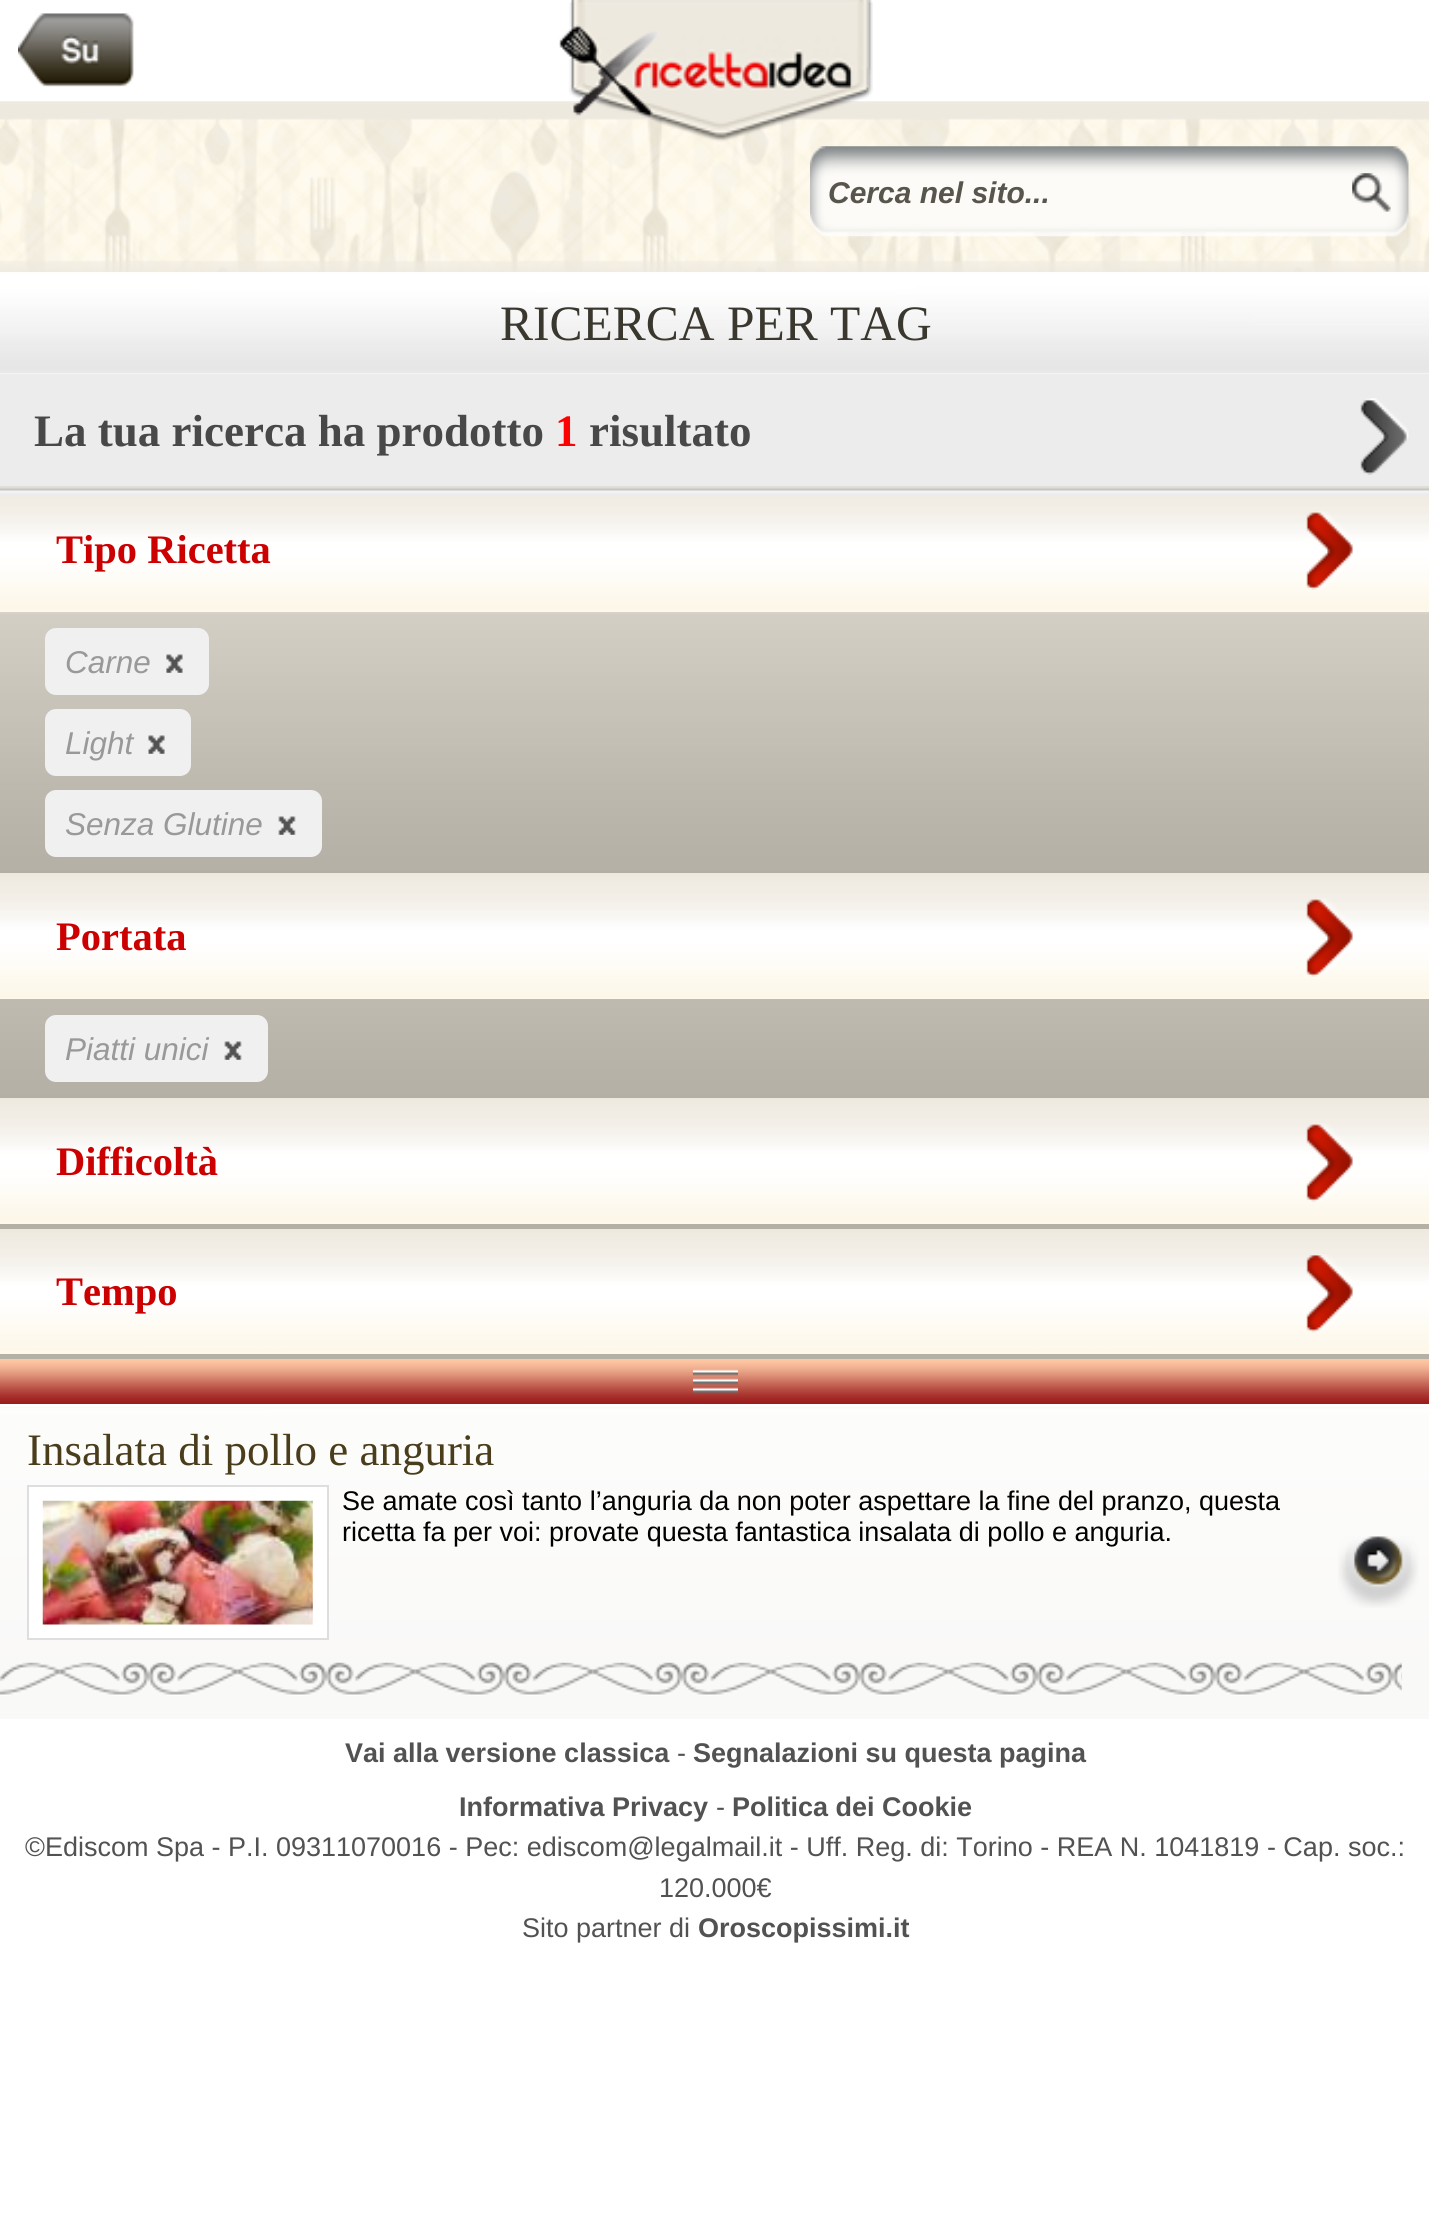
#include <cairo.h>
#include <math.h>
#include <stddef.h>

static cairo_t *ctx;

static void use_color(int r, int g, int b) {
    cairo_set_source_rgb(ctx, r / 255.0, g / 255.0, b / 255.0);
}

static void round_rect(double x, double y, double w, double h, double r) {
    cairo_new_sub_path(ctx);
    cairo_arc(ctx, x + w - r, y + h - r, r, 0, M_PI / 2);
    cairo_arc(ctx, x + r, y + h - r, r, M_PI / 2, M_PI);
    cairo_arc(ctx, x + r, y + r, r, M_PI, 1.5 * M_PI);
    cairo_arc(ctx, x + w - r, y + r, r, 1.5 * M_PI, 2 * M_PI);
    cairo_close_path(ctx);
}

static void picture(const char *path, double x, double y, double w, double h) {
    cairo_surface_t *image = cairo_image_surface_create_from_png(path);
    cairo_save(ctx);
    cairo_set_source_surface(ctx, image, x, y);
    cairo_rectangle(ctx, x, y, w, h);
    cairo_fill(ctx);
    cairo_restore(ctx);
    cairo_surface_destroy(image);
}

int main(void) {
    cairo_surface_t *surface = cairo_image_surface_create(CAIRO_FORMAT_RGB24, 1429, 2219);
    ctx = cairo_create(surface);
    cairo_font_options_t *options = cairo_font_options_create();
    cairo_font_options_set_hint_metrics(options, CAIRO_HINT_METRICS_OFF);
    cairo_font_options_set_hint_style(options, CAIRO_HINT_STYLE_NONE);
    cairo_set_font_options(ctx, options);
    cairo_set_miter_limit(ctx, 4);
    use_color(255, 255, 255);
    cairo_paint(ctx);
    picture("img1.png", 18, 13, 116, 74);
    picture("img3.png", 0, 101, 1429, 172);
    picture("img2.png", 559, 0, 314, 142);
    picture("img4.png", 810, 146, 599, 91);
    cairo_select_font_face(ctx, "Liberation Sans", CAIRO_FONT_SLANT_ITALIC, CAIRO_FONT_WEIGHT_BOLD);
    cairo_set_font_size(ctx, 30);
    use_color(88, 85, 77);
    cairo_move_to(ctx, 828, 203);
    cairo_show_text(ctx, "Cerca nel sito...");
    picture("img5.png", 1352, 173, 39, 39);
    picture("img6.png", 0, 272, 1429, 102);
    cairo_select_font_face(ctx, "Liberation Serif", CAIRO_FONT_SLANT_NORMAL, CAIRO_FONT_WEIGHT_NORMAL);
    cairo_set_font_size(ctx, 49.5);
    use_color(58, 55, 46);
    cairo_move_to(ctx, 500, 340);
    cairo_show_text(ctx, "RICERCA PER TAG");
    use_color(237, 236, 236);
    cairo_rectangle(ctx, 0, 374, 1429, 112);
    cairo_fill(ctx);
    cairo_select_font_face(ctx, "Liberation Serif", CAIRO_FONT_SLANT_NORMAL, CAIRO_FONT_WEIGHT_BOLD);
    cairo_set_font_size(ctx, 45);
    use_color(72, 72, 72);
    cairo_move_to(ctx, 34, 446);
    cairo_show_text(ctx, "La tua ricerca ha prodotto");
    use_color(255, 0, 0);
    cairo_move_to(ctx, 555, 446);
    cairo_show_text(ctx, "1");
    use_color(72, 72, 72);
    cairo_move_to(ctx, 589, 446);
    cairo_show_text(ctx, "risultato");
    picture("img7.png", 1360, 398, 49, 77);
    picture("img9.png", 0, 486, 1429, 126);
    picture("img8.png", 0, 486, 1429, 9);
    cairo_set_font_size(ctx, 40.5);
    use_color(204, 0, 0);
    cairo_move_to(ctx, 56, 563);
    cairo_show_text(ctx, "Tipo Ricetta");
    picture("img10.png", 1306, 511, 47, 79);
    use_color(215, 211, 201);
    cairo_rectangle(ctx, 0, 612, 1429, 2);
    cairo_fill(ctx);
    picture("img11.png", 0, 614, 1429, 259);
    use_color(240, 240, 240);
    round_rect(46, 629, 162, 65, 10);
    cairo_fill_preserve(ctx);
    cairo_stroke(ctx);
    cairo_select_font_face(ctx, "Liberation Sans", CAIRO_FONT_SLANT_ITALIC, CAIRO_FONT_WEIGHT_NORMAL);
    cairo_set_font_size(ctx, 31.5);
    use_color(153, 153, 153);
    cairo_move_to(ctx, 65, 673);
    cairo_show_text(ctx, "Carne");
    picture("img12.png", 166, 654, 17, 19);
    use_color(240, 240, 240);
    round_rect(46, 710, 144, 65, 10);
    cairo_fill_preserve(ctx);
    cairo_stroke(ctx);
    use_color(153, 153, 153);
    cairo_move_to(ctx, 65, 754);
    cairo_show_text(ctx, "Light");
    picture("img13.png", 148, 735, 17, 19);
    use_color(240, 240, 240);
    round_rect(46, 791, 275, 65, 10);
    cairo_fill_preserve(ctx);
    cairo_stroke(ctx);
    use_color(153, 153, 153);
    cairo_move_to(ctx, 65, 835);
    cairo_show_text(ctx, "Senza Glutine");
    picture("img14.png", 278, 816, 18, 19);
    picture("img15.png", 0, 873, 1429, 126);
    cairo_select_font_face(ctx, "Liberation Serif", CAIRO_FONT_SLANT_NORMAL, CAIRO_FONT_WEIGHT_BOLD);
    cairo_set_font_size(ctx, 40.5);
    use_color(204, 0, 0);
    cairo_move_to(ctx, 56, 950);
    cairo_show_text(ctx, "Portata");
    picture("img10.png", 1306, 898, 47, 79);
    picture("img16.png", 0, 999, 1429, 99);
    use_color(240, 240, 240);
    round_rect(46, 1016, 221, 65, 10);
    cairo_fill_preserve(ctx);
    cairo_stroke(ctx);
    cairo_select_font_face(ctx, "Liberation Sans", CAIRO_FONT_SLANT_ITALIC, CAIRO_FONT_WEIGHT_NORMAL);
    cairo_set_font_size(ctx, 31.5);
    use_color(153, 153, 153);
    cairo_move_to(ctx, 65, 1060);
    cairo_show_text(ctx, "Piatti unici");
    picture("img17.png", 224, 1041, 18, 19);
    picture("img18.png", 0, 1098, 1429, 126);
    cairo_select_font_face(ctx, "Liberation Serif", CAIRO_FONT_SLANT_NORMAL, CAIRO_FONT_WEIGHT_BOLD);
    cairo_set_font_size(ctx, 40.5);
    use_color(204, 0, 0);
    cairo_move_to(ctx, 56, 1175);
    cairo_show_text(ctx, "Difficoltà");
    picture("img19.png", 1306, 1123, 47, 79);
    use_color(180, 176, 166);
    cairo_rectangle(ctx, 0, 1224, 1429, 5);
    cairo_fill(ctx);
    picture("img20.png", 0, 1229, 1429, 125);
    use_color(204, 0, 0);
    cairo_move_to(ctx, 56, 1305);
    cairo_show_text(ctx, "Tempo");
    picture("img21.png", 1306, 1254, 47, 79);
    use_color(215, 211, 201);
    cairo_rectangle(ctx, 0, 1359, 1429, 1);
    cairo_fill(ctx);
    use_color(180, 176, 166);
    cairo_rectangle(ctx, 0, 1354, 1429, 5);
    cairo_fill(ctx);
    picture("img22.png", 0, 1360, 1429, 44);
    picture("img23.png", 693, 1369, 45, 25);
    picture("img24.png", 0, 1406, 1429, 313);
    cairo_select_font_face(ctx, "Liberation Serif", CAIRO_FONT_SLANT_NORMAL, CAIRO_FONT_WEIGHT_NORMAL);
    cairo_set_font_size(ctx, 45);
    use_color(74, 61, 27);
    cairo_move_to(ctx, 27, 1465);
    cairo_show_text(ctx, "Insalata di pollo e anguria");
    use_color(255, 255, 255);
    cairo_rectangle(ctx, 28, 1486, 300, 153);
    cairo_fill_preserve(ctx);
    use_color(222, 222, 222);
    cairo_stroke(ctx);
    picture("img25.png", 42, 1500, 271, 125);
    cairo_select_font_face(ctx, "Liberation Sans", CAIRO_FONT_SLANT_NORMAL, CAIRO_FONT_WEIGHT_NORMAL);
    cairo_set_font_size(ctx, 27);
    use_color(0, 0, 0);
    cairo_move_to(ctx, 342, 1510);
    cairo_show_text(ctx, "Se amate così tanto l’anguria da non poter aspettare la fine del pranzo, questa");
    cairo_move_to(ctx, 342, 1541);
    cairo_show_text(ctx, "ricetta fa per voi: provate questa fantastica insalata di pollo e anguria.");
    picture("img26.png", 1338, 1536, 81, 72);
    picture("img27.png", 0, 1662, 1402, 34);
    cairo_select_font_face(ctx, "Liberation Sans", CAIRO_FONT_SLANT_NORMAL, CAIRO_FONT_WEIGHT_BOLD);
    use_color(82, 82, 82);
    cairo_move_to(ctx, 345, 1762);
    cairo_show_text(ctx, "Vai alla versione classica");
    cairo_select_font_face(ctx, "Liberation Sans", CAIRO_FONT_SLANT_NORMAL, CAIRO_FONT_WEIGHT_NORMAL);
    cairo_move_to(ctx, 677, 1762);
    cairo_show_text(ctx, "-");
    cairo_select_font_face(ctx, "Liberation Sans", CAIRO_FONT_SLANT_NORMAL, CAIRO_FONT_WEIGHT_BOLD);
    cairo_move_to(ctx, 693, 1762);
    cairo_show_text(ctx, "Segnalazioni su questa pagina");
    cairo_move_to(ctx, 459, 1816);
    cairo_show_text(ctx, "Informativa Privacy");
    cairo_select_font_face(ctx, "Liberation Sans", CAIRO_FONT_SLANT_NORMAL, CAIRO_FONT_WEIGHT_NORMAL);
    cairo_move_to(ctx, 716, 1816);
    cairo_show_text(ctx, "-");
    cairo_select_font_face(ctx, "Liberation Sans", CAIRO_FONT_SLANT_NORMAL, CAIRO_FONT_WEIGHT_BOLD);
    cairo_move_to(ctx, 732, 1816);
    cairo_show_text(ctx, "Politica dei Cookie");
    cairo_select_font_face(ctx, "Liberation Sans", CAIRO_FONT_SLANT_NORMAL, CAIRO_FONT_WEIGHT_NORMAL);
    cairo_move_to(ctx, 25, 1856);
    cairo_show_text(ctx, "©Ediscom Spa - P.I. 09311070016 - Pec: ediscom@legalmail.it - Uff. Reg. di: Torino - REA N. 1041819 - Cap. soc.:");
    cairo_move_to(ctx, 659, 1897);
    cairo_show_text(ctx, "120.000€");
    cairo_move_to(ctx, 522, 1937);
    cairo_show_text(ctx, "Sito partner di");
    cairo_select_font_face(ctx, "Liberation Sans", CAIRO_FONT_SLANT_NORMAL, CAIRO_FONT_WEIGHT_BOLD);
    cairo_move_to(ctx, 698, 1937);
    cairo_show_text(ctx, "Oroscopissimi.it");
    cairo_surface_write_to_png(surface, "result.png");
    cairo_font_options_destroy(options);
    cairo_destroy(ctx);
    cairo_surface_destroy(surface);
    return 0;
}
